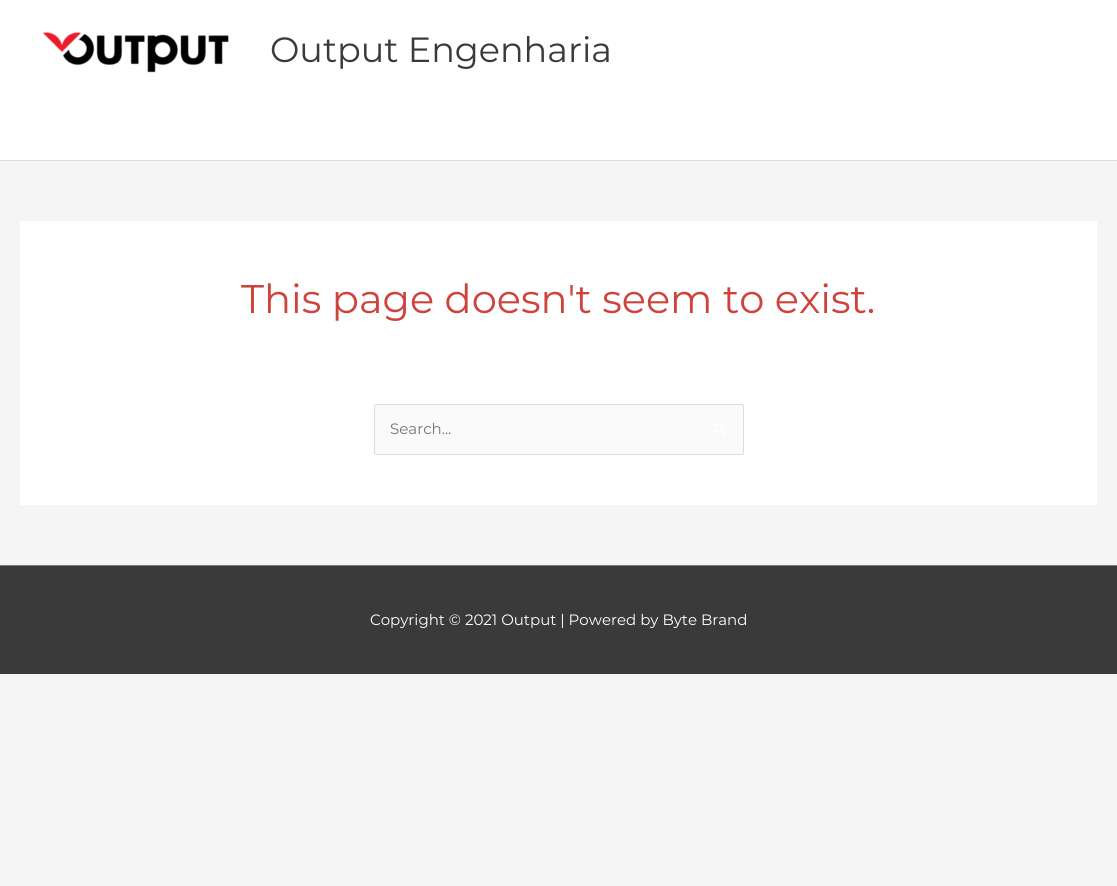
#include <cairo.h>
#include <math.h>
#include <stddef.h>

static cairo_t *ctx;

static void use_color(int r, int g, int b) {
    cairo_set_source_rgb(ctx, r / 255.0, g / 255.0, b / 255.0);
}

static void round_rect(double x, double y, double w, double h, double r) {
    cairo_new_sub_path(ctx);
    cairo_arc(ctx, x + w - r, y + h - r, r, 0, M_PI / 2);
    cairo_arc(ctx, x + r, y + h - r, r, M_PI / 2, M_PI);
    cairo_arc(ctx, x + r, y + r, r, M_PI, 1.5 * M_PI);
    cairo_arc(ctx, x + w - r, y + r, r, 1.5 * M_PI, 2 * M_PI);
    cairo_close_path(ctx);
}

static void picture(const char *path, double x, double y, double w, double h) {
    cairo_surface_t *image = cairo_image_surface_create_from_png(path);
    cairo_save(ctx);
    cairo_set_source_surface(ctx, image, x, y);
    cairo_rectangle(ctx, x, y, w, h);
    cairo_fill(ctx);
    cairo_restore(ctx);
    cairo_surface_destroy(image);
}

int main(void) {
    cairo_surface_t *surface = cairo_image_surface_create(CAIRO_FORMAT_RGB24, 1117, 886);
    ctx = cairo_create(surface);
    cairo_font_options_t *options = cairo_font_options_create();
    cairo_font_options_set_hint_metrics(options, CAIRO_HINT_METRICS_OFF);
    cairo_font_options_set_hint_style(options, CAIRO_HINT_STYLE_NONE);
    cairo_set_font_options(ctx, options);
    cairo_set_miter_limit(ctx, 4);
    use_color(245, 245, 245);
    cairo_paint(ctx);
    use_color(255, 255, 255);
    cairo_rectangle(ctx, 0, 0, 1117, 160);
    cairo_fill(ctx);
    use_color(221, 221, 221);
    cairo_rectangle(ctx, 0, 160, 1117, 1);
    cairo_fill(ctx);
    picture("img1.png", 42, 32, 187, 41);
    cairo_select_font_face(ctx, "Montserrat Thin", CAIRO_FONT_SLANT_NORMAL, CAIRO_FONT_WEIGHT_NORMAL);
    cairo_set_font_size(ctx, 35);
    use_color(58, 58, 58);
    cairo_move_to(ctx, 270, 62);
    cairo_show_text(ctx, "Output Engenharia");
    use_color(255, 255, 255);
    cairo_rectangle(ctx, 20, 221, 1077, 284);
    cairo_fill(ctx);
    cairo_set_font_size(ctx, 40);
    use_color(206, 68, 60);
    cairo_move_to(ctx, 241, 313);
    cairo_show_text(ctx, "This page doesn't seem to exist.");
    use_color(250, 250, 250);
    round_rect(374.5, 404.5, 369, 50, 1.5);
    cairo_fill_preserve(ctx);
    use_color(221, 221, 221);
    cairo_set_line_width(ctx, 1);
    cairo_stroke(ctx);
    cairo_set_font_size(ctx, 15);
    use_color(117, 117, 117);
    cairo_move_to(ctx, 390, 434);
    cairo_show_text(ctx, "Search...");
    picture("img2.png", 714, 424, 12, 12);
    use_color(122, 122, 122);
    cairo_rectangle(ctx, 0, 565, 1117, 1);
    cairo_fill(ctx);
    use_color(58, 58, 58);
    cairo_rectangle(ctx, 0, 566, 1117, 108);
    cairo_fill(ctx);
    use_color(255, 255, 255);
    cairo_move_to(ctx, 370, 625);
    cairo_show_text(ctx, "Copyright © 2021 Output | Powered by Byte Brand");
    cairo_surface_write_to_png(surface, "result.png");
    cairo_font_options_destroy(options);
    cairo_destroy(ctx);
    cairo_surface_destroy(surface);
    return 0;
}
